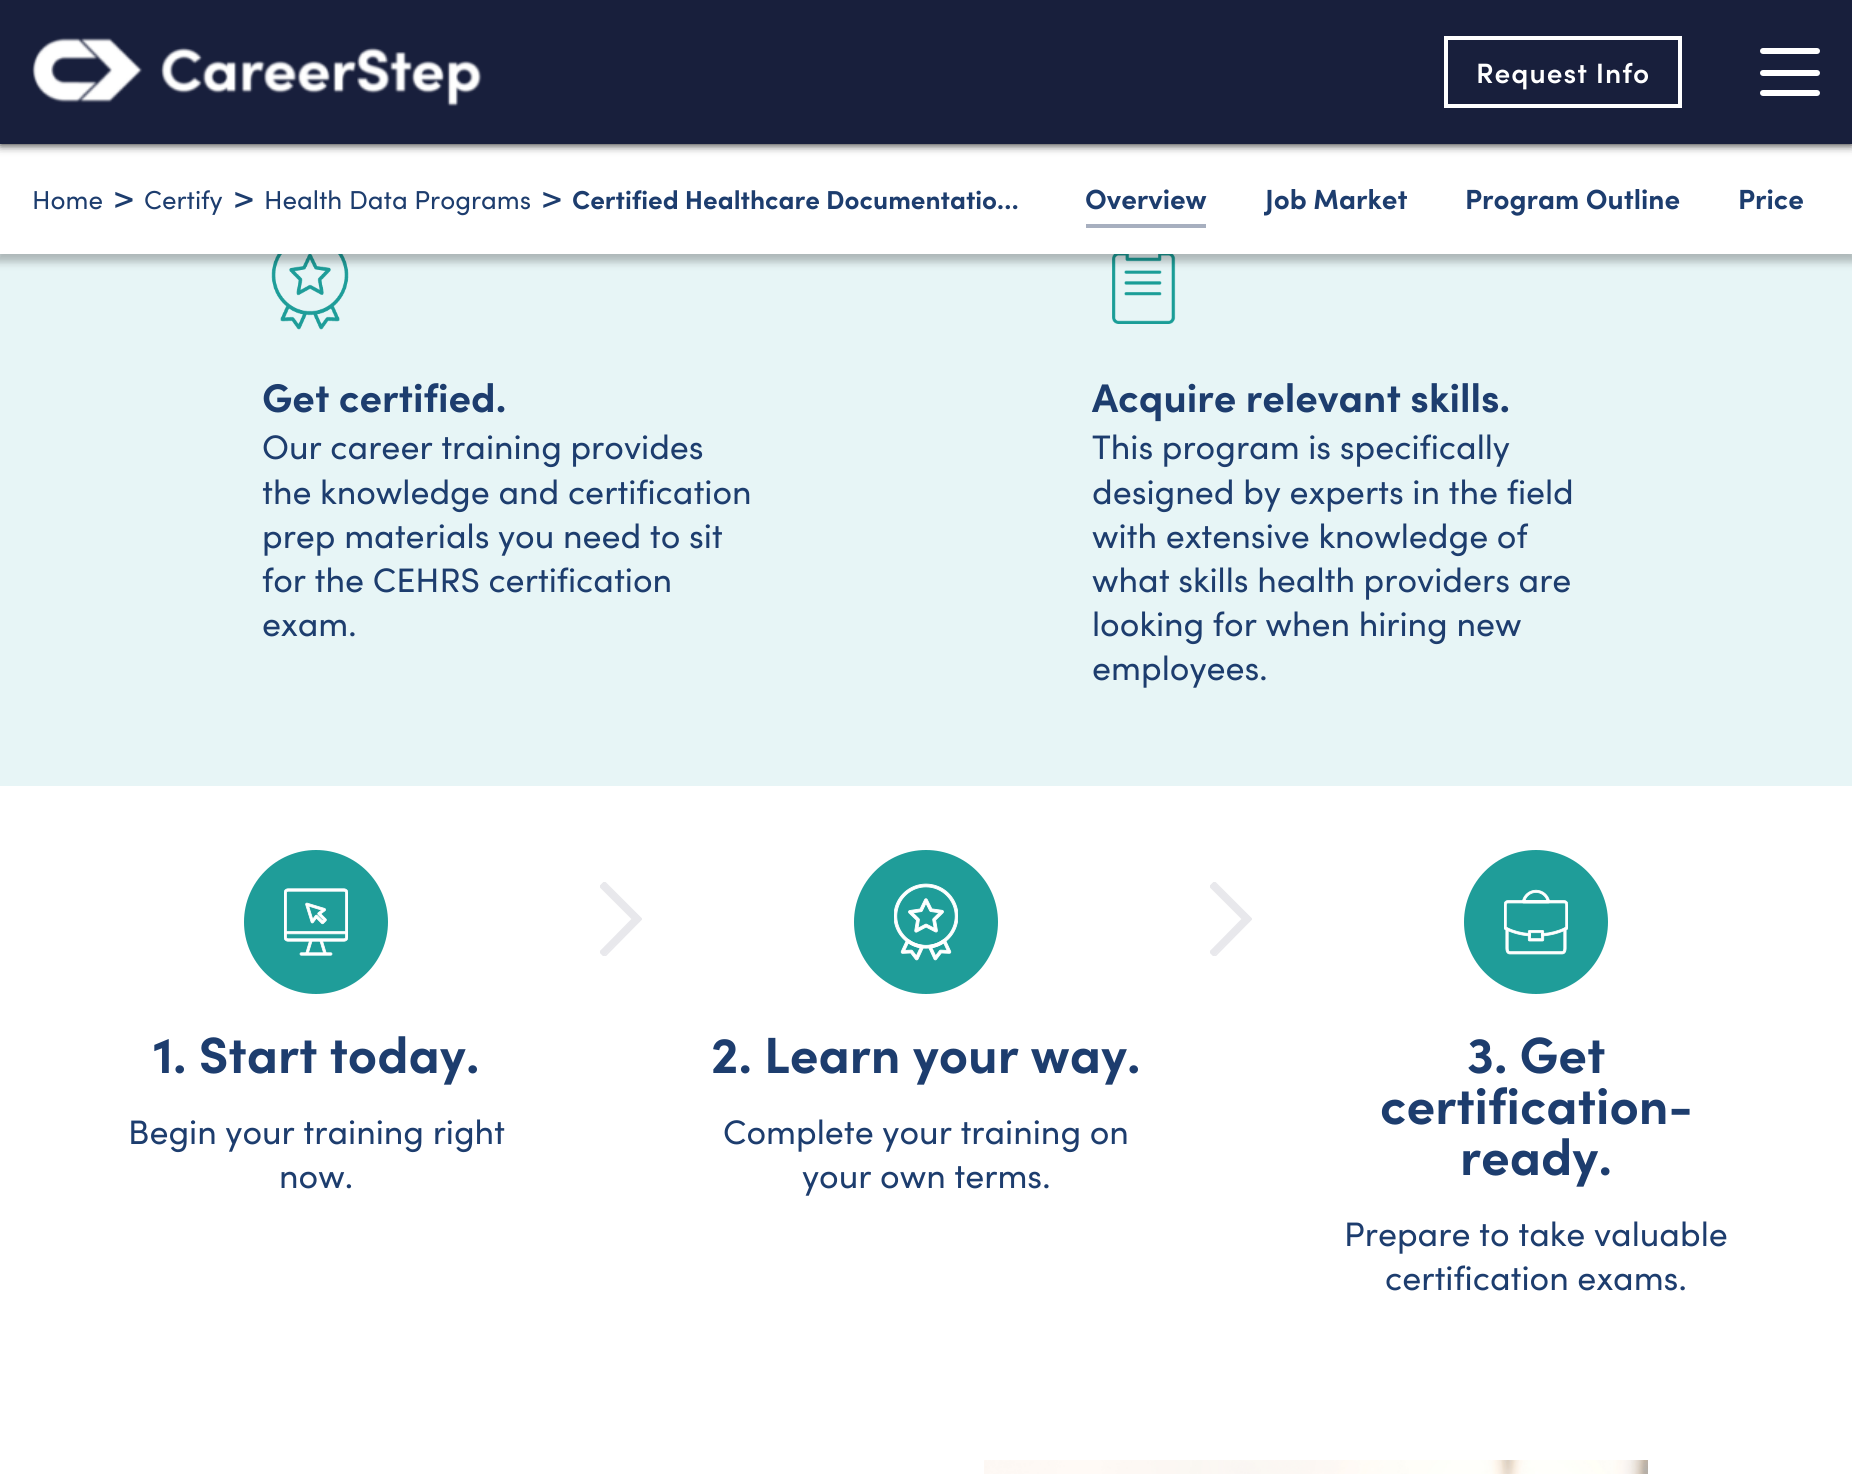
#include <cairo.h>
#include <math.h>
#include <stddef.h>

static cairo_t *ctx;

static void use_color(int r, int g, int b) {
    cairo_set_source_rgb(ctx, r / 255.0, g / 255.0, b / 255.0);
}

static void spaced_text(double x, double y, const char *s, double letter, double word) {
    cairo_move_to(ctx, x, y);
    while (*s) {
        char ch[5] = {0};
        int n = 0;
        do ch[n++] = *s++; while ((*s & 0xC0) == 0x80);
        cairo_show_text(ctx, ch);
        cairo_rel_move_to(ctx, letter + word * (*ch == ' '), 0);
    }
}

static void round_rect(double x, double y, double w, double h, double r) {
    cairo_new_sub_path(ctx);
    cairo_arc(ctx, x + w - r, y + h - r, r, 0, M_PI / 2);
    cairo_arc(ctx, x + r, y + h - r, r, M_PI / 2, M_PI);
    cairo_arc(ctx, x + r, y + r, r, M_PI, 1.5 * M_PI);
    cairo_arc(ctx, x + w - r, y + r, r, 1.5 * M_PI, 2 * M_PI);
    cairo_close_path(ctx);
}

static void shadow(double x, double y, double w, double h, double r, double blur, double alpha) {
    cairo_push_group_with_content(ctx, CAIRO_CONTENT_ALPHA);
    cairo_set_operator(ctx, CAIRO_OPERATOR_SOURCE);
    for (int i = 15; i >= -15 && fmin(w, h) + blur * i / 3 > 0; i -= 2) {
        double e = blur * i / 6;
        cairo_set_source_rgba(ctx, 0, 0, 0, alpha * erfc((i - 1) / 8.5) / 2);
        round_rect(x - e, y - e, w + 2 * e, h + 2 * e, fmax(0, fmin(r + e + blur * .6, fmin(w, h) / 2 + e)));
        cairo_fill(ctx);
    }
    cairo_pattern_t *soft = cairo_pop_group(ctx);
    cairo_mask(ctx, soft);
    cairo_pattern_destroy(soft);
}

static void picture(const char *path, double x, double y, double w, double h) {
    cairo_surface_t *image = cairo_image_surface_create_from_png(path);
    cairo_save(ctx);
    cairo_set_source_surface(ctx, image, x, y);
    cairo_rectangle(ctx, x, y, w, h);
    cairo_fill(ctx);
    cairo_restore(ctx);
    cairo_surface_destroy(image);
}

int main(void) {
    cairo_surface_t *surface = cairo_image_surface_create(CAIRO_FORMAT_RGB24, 1852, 1474);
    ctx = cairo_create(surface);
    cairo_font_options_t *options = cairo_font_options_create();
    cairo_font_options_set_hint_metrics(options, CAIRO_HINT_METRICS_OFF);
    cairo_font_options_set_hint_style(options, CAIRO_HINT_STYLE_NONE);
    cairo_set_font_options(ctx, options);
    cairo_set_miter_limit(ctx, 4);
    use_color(255, 255, 255);
    cairo_paint(ctx);
    use_color(231, 245, 246);
    cairo_rectangle(ctx, 0, 254, 1852, 532);
    cairo_fill(ctx);
    picture("img2.png", 271, 254, 78, 76);
    picture("img3.png", 1112, 254, 64, 70);
    use_color(0, 0, 0);
    shadow(-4, 144, 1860, 118, 0, 4, 0.25);
    use_color(255, 255, 255);
    cairo_rectangle(ctx, 0, 144, 1852, 110);
    cairo_fill(ctx);
    use_color(0, 0, 1);
    shadow(0, 0, 1852, 144, 0, 5, 1);
    use_color(24, 31, 60);
    cairo_rectangle(ctx, 0, 0, 1852, 144);
    cairo_fill(ctx);
    picture("img1.png", 32, 37, 450, 70);
    cairo_rectangle(ctx, 1446, 38, 234, 68);
    use_color(255, 255, 255);
    cairo_set_line_width(ctx, 4);
    cairo_stroke(ctx);
    cairo_select_font_face(ctx, "Sofia SemiBold", CAIRO_FONT_SLANT_NORMAL, CAIRO_FONT_WEIGHT_NORMAL);
    cairo_set_font_size(ctx, 28);
    spaced_text(1476, 83, "Request Info", 1, 0);
    round_rect(1760, 48, 60, 6, 3);
    cairo_fill(ctx);
    round_rect(1760, 70, 60, 6, 3);
    cairo_fill(ctx);
    round_rect(1760, 90, 60, 6, 3);
    cairo_fill(ctx);
    cairo_select_font_face(ctx, "Sofia", CAIRO_FONT_SLANT_NORMAL, CAIRO_FONT_WEIGHT_NORMAL);
    cairo_set_font_size(ctx, 26);
    use_color(29, 61, 110);
    cairo_move_to(ctx, 32, 209);
    cairo_show_text(ctx, "Home");
    cairo_set_font_size(ctx, 34);
    cairo_move_to(ctx, 113, 209);
    cairo_show_text(ctx, ">");
    cairo_set_font_size(ctx, 26);
    cairo_move_to(ctx, 144, 209);
    cairo_show_text(ctx, "Certify");
    cairo_set_font_size(ctx, 34);
    cairo_move_to(ctx, 233, 209);
    cairo_show_text(ctx, ">");
    cairo_set_font_size(ctx, 26);
    cairo_move_to(ctx, 264, 209);
    cairo_show_text(ctx, "Health Data Programs");
    cairo_set_font_size(ctx, 34);
    cairo_move_to(ctx, 541, 209);
    cairo_show_text(ctx, ">");
    cairo_select_font_face(ctx, "Sofia", CAIRO_FONT_SLANT_NORMAL, CAIRO_FONT_WEIGHT_BOLD);
    cairo_set_font_size(ctx, 26);
    cairo_move_to(ctx, 572, 209);
    cairo_show_text(ctx, "Certified Healthcare Documentatio…");
    use_color(167, 175, 191);
    cairo_rectangle(ctx, 1086, 224, 120, 4);
    cairo_fill(ctx);
    cairo_set_font_size(ctx, 27.75);
    use_color(29, 61, 110);
    cairo_move_to(ctx, 1085, 209);
    cairo_show_text(ctx, "Overview");
    cairo_save(ctx);
    cairo_rectangle(ctx, 1264, 170, 144, 54);
    cairo_clip(ctx);
    cairo_move_to(ctx, 1265, 209);
    cairo_show_text(ctx, "Job Market");
    cairo_restore(ctx);
    cairo_move_to(ctx, 1465, 209);
    cairo_show_text(ctx, "Program Outline");
    cairo_move_to(ctx, 1738, 209);
    cairo_show_text(ctx, "Price");
    cairo_set_font_size(ctx, 40);
    cairo_move_to(ctx, 262, 412);
    cairo_show_text(ctx, "Get certified.");
    cairo_select_font_face(ctx, "Sofia", CAIRO_FONT_SLANT_NORMAL, CAIRO_FONT_WEIGHT_NORMAL);
    cairo_set_font_size(ctx, 34);
    cairo_move_to(ctx, 262, 459);
    cairo_show_text(ctx, "Our career training provides");
    cairo_move_to(ctx, 262, 504);
    cairo_show_text(ctx, "the knowledge and certification");
    cairo_move_to(ctx, 262, 548);
    cairo_show_text(ctx, "prep materials you need to sit");
    cairo_move_to(ctx, 262, 592);
    cairo_show_text(ctx, "for the CEHRS certification");
    cairo_move_to(ctx, 262, 636);
    cairo_show_text(ctx, "exam.");
    cairo_select_font_face(ctx, "Sofia", CAIRO_FONT_SLANT_NORMAL, CAIRO_FONT_WEIGHT_BOLD);
    cairo_set_font_size(ctx, 40);
    cairo_move_to(ctx, 1092, 412);
    cairo_show_text(ctx, "Acquire relevant skills.");
    cairo_select_font_face(ctx, "Sofia", CAIRO_FONT_SLANT_NORMAL, CAIRO_FONT_WEIGHT_NORMAL);
    cairo_set_font_size(ctx, 34);
    cairo_move_to(ctx, 1092, 459);
    cairo_show_text(ctx, "This program is specifically");
    cairo_move_to(ctx, 1092, 504);
    cairo_show_text(ctx, "designed by experts in the field");
    cairo_move_to(ctx, 1092, 548);
    cairo_show_text(ctx, "with extensive knowledge of");
    cairo_move_to(ctx, 1092, 592);
    cairo_show_text(ctx, "what skills health providers are");
    cairo_move_to(ctx, 1092, 636);
    cairo_show_text(ctx, "looking for when hiring new");
    cairo_move_to(ctx, 1092, 680);
    cairo_show_text(ctx, "employees.");
    use_color(232, 232, 236);
    cairo_new_path(ctx);
    cairo_move_to(ctx, 604, 956);
    cairo_line_to(ctx, 600, 952);
    cairo_line_to(ctx, 633, 919);
    cairo_line_to(ctx, 600, 886);
    cairo_line_to(ctx, 604, 882);
    cairo_line_to(ctx, 642, 919);
    cairo_close_path(ctx);
    cairo_fill(ctx);
    cairo_save(ctx);
    cairo_rectangle(ctx, 600, 882, 42, 74);
    cairo_clip(ctx);
    cairo_new_path(ctx);
    cairo_move_to(ctx, 604.5, 956.5);
    cairo_line_to(ctx, 600, 952);
    cairo_line_to(ctx, 632.5, 919);
    cairo_line_to(ctx, 600, 886.5);
    cairo_line_to(ctx, 604.5, 882);
    cairo_line_to(ctx, 641.5, 919);
    cairo_close_path(ctx);
    cairo_set_line_width(ctx, 1.6);
    cairo_stroke(ctx);
    cairo_restore(ctx);
    cairo_new_path(ctx);
    cairo_move_to(ctx, 1214, 956);
    cairo_line_to(ctx, 1210, 952);
    cairo_line_to(ctx, 1243, 919);
    cairo_line_to(ctx, 1210, 886);
    cairo_line_to(ctx, 1214, 882);
    cairo_line_to(ctx, 1252, 919);
    cairo_close_path(ctx);
    cairo_fill(ctx);
    cairo_save(ctx);
    cairo_rectangle(ctx, 1210, 882, 42, 74);
    cairo_clip(ctx);
    cairo_new_path(ctx);
    cairo_move_to(ctx, 1214.5, 956.5);
    cairo_line_to(ctx, 1210, 952);
    cairo_line_to(ctx, 1242.5, 919);
    cairo_line_to(ctx, 1210, 886.5);
    cairo_line_to(ctx, 1214.5, 882);
    cairo_line_to(ctx, 1251.5, 919);
    cairo_close_path(ctx);
    cairo_set_line_width(ctx, 1.6);
    cairo_stroke(ctx);
    cairo_restore(ctx);
    use_color(31, 157, 153);
    cairo_arc(ctx, 316, 922, 70, 0, 2 * M_PI);
    cairo_fill_preserve(ctx);
    cairo_stroke(ctx);
    picture("img4.png", 284, 888, 64, 68);
    cairo_select_font_face(ctx, "Sofia", CAIRO_FONT_SLANT_NORMAL, CAIRO_FONT_WEIGHT_BOLD);
    cairo_set_font_size(ctx, 51);
    use_color(29, 61, 110);
    cairo_move_to(ctx, 153, 1073);
    cairo_show_text(ctx, "1. Start today.");
    cairo_select_font_face(ctx, "Sofia", CAIRO_FONT_SLANT_NORMAL, CAIRO_FONT_WEIGHT_NORMAL);
    cairo_set_font_size(ctx, 34);
    cairo_move_to(ctx, 128, 1144);
    cairo_show_text(ctx, "Begin your training right");
    cairo_move_to(ctx, 279, 1188);
    cairo_show_text(ctx, "now.");
    use_color(31, 157, 153);
    cairo_new_path(ctx);
    cairo_arc(ctx, 926, 922, 70, 0, 2 * M_PI);
    cairo_fill_preserve(ctx);
    cairo_stroke(ctx);
    picture("img5.png", 894, 883, 64, 78);
    cairo_select_font_face(ctx, "Sofia", CAIRO_FONT_SLANT_NORMAL, CAIRO_FONT_WEIGHT_BOLD);
    cairo_set_font_size(ctx, 51);
    use_color(29, 61, 110);
    cairo_move_to(ctx, 711, 1073);
    cairo_show_text(ctx, "2. Learn your way.");
    cairo_select_font_face(ctx, "Sofia", CAIRO_FONT_SLANT_NORMAL, CAIRO_FONT_WEIGHT_NORMAL);
    cairo_set_font_size(ctx, 34);
    cairo_move_to(ctx, 723, 1144);
    cairo_show_text(ctx, "Complete your training on");
    cairo_move_to(ctx, 802, 1188);
    cairo_show_text(ctx, "your own terms.");
    use_color(31, 157, 153);
    cairo_new_path(ctx);
    cairo_arc(ctx, 1536, 922, 70, 0, 2 * M_PI);
    cairo_fill_preserve(ctx);
    cairo_stroke(ctx);
    picture("img6.png", 1504, 889, 64, 66);
    cairo_select_font_face(ctx, "Sofia", CAIRO_FONT_SLANT_NORMAL, CAIRO_FONT_WEIGHT_BOLD);
    cairo_set_font_size(ctx, 51);
    use_color(29, 61, 110);
    cairo_move_to(ctx, 1467, 1073);
    cairo_show_text(ctx, "3. Get");
    cairo_move_to(ctx, 1380, 1124);
    cairo_show_text(ctx, "certification-");
    cairo_move_to(ctx, 1460, 1175);
    cairo_show_text(ctx, "ready.");
    cairo_select_font_face(ctx, "Sofia", CAIRO_FONT_SLANT_NORMAL, CAIRO_FONT_WEIGHT_NORMAL);
    cairo_set_font_size(ctx, 34);
    cairo_move_to(ctx, 1344, 1246);
    cairo_show_text(ctx, "Prepare to take valuable");
    cairo_move_to(ctx, 1385, 1290);
    cairo_show_text(ctx, "certification exams.");
    picture("img7.png", 984, 1460, 664, 14);
    cairo_surface_write_to_png(surface, "result.png");
    cairo_font_options_destroy(options);
    cairo_destroy(ctx);
    cairo_surface_destroy(surface);
    return 0;
}
